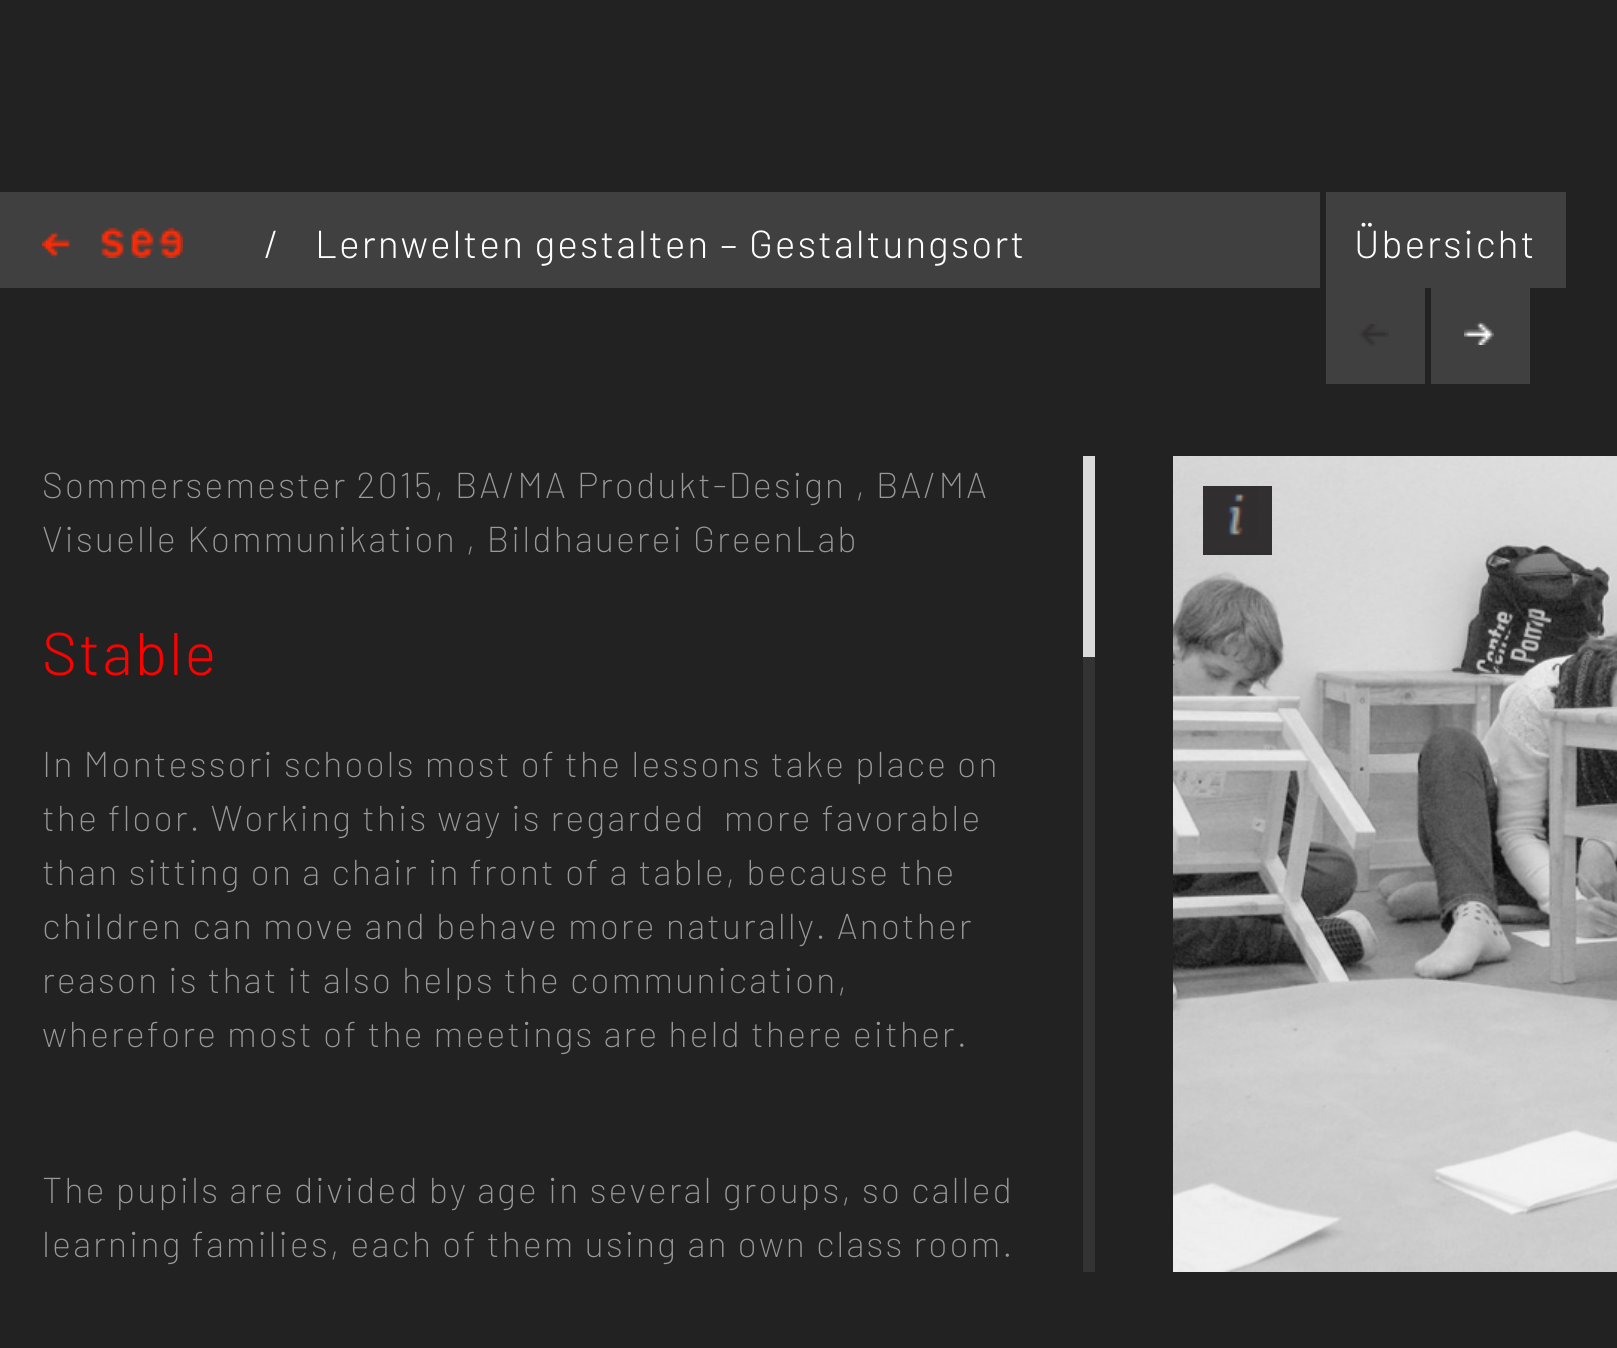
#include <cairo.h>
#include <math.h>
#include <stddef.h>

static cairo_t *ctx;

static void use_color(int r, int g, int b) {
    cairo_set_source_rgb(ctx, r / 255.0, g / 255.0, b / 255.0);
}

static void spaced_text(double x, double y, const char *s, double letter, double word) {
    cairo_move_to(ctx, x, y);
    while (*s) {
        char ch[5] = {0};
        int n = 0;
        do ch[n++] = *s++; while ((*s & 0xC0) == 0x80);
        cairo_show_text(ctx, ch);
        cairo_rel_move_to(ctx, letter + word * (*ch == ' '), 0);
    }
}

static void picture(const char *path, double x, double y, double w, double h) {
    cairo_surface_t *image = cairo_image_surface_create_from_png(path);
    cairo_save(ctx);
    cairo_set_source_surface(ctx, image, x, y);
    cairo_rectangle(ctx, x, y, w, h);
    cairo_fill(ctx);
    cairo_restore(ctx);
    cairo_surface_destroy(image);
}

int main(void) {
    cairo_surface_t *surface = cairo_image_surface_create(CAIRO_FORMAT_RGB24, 1617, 1348);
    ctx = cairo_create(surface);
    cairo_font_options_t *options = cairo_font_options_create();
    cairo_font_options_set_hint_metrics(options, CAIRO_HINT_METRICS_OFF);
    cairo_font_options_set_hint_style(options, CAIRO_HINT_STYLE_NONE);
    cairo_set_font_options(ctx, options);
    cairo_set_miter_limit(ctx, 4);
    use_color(34, 34, 34);
    cairo_paint(ctx);
    use_color(64, 64, 64);
    cairo_rectangle(ctx, 0, 192, 1320, 96);
    cairo_fill(ctx);
    picture("img1.png", 42, 228, 141, 30);
    cairo_select_font_face(ctx, "Barlow Light", CAIRO_FONT_SLANT_NORMAL, CAIRO_FONT_WEIGHT_NORMAL);
    cairo_set_font_size(ctx, 39);
    use_color(255, 255, 255);
    spaced_text(264, 258, "/", 1.95, 0);
    spaced_text(315, 258, "Lernwelten gestalten – Gestaltungsort", 1.95, 0);
    use_color(64, 64, 64);
    cairo_rectangle(ctx, 1326, 192, 240, 96);
    cairo_fill(ctx);
    use_color(255, 255, 255);
    spaced_text(1354, 258, "Übersicht", 1.95, 0);
    use_color(64, 64, 64);
    cairo_rectangle(ctx, 1326, 288, 99, 96);
    cairo_fill(ctx);
    picture("img2.png", 1359, 324, 30, 22);
    cairo_rectangle(ctx, 1431, 288, 99, 96);
    cairo_fill(ctx);
    picture("img3.png", 1464, 321, 30, 24);
    cairo_select_font_face(ctx, "Barlow ExtraLight", CAIRO_FONT_SLANT_NORMAL, CAIRO_FONT_WEIGHT_NORMAL);
    cairo_set_font_size(ctx, 36);
    use_color(153, 153, 153);
    spaced_text(42, 498, "Sommersemester 2015, BA/MA Produkt-Design , BA/MA", 1.95, 0);
    spaced_text(42, 552, "Visuelle Kommunikation , Bildhauerei GreenLab", 1.95, 0);
    cairo_select_font_face(ctx, "Barlow Light", CAIRO_FONT_SLANT_NORMAL, CAIRO_FONT_WEIGHT_NORMAL);
    cairo_set_font_size(ctx, 60);
    use_color(255, 0, 0);
    spaced_text(42, 675, "Stable", 1.95, 0);
    cairo_select_font_face(ctx, "Barlow ExtraLight", CAIRO_FONT_SLANT_NORMAL, CAIRO_FONT_WEIGHT_NORMAL);
    cairo_set_font_size(ctx, 36);
    use_color(153, 153, 153);
    spaced_text(42, 777, "In Montessori schools most of the lessons take place on", 1.95, 0);
    spaced_text(42, 831, "the floor. Working this way is regarded  more favorable", 1.95, 0);
    spaced_text(42, 885, "than sitting on a chair in front of a table, because the", 1.95, 0);
    spaced_text(42, 939, "children can move and behave more naturally. Another", 1.95, 0);
    spaced_text(42, 993, "reason is that it also helps the communication,", 1.95, 0);
    spaced_text(42, 1047, "wherefore most of the meetings are held there either.", 1.95, 0);
    spaced_text(42, 1203, "The pupils are divided by age in several groups, so called", 1.95, 0);
    spaced_text(42, 1257, "learning families, each of them using an own class room.", 1.95, 0);
    use_color(51, 51, 51);
    cairo_rectangle(ctx, 1083, 657, 12, 615);
    cairo_fill(ctx);
    use_color(218, 218, 218);
    cairo_rectangle(ctx, 1083, 456, 12, 201);
    cairo_fill(ctx);
    picture("img4.png", 1173, 456, 444, 816);
    picture("img5.png", 1203, 486, 69, 69);
    cairo_surface_write_to_png(surface, "result.png");
    cairo_font_options_destroy(options);
    cairo_destroy(ctx);
    cairo_surface_destroy(surface);
    return 0;
}
